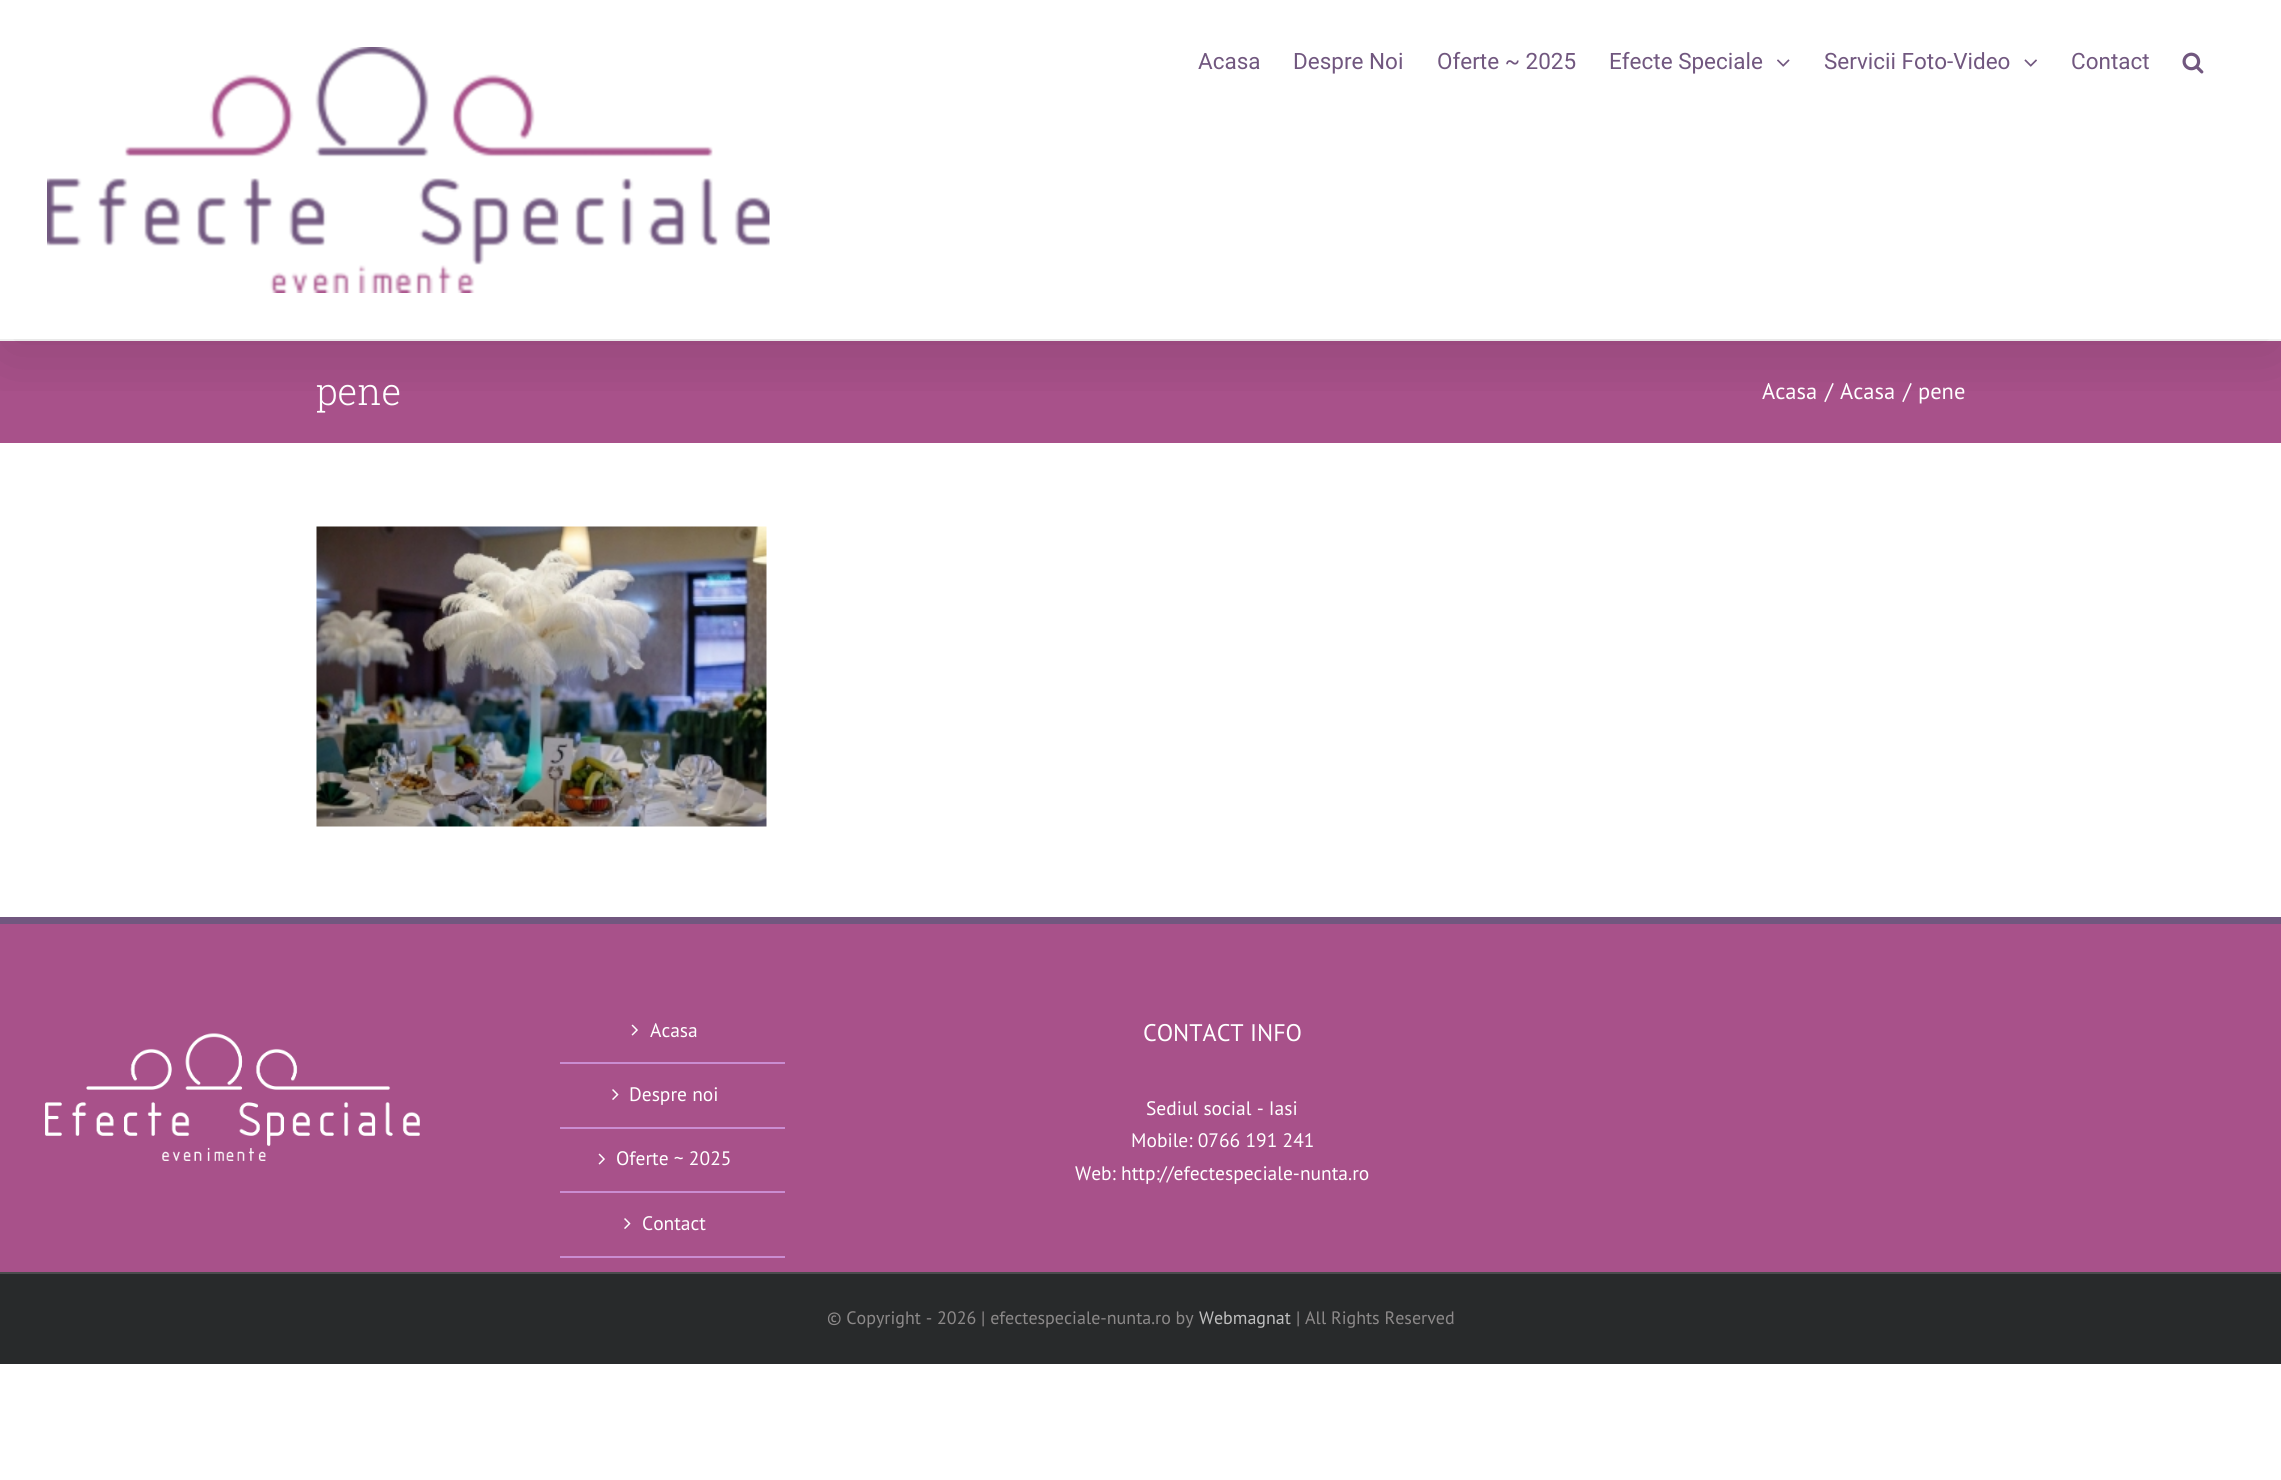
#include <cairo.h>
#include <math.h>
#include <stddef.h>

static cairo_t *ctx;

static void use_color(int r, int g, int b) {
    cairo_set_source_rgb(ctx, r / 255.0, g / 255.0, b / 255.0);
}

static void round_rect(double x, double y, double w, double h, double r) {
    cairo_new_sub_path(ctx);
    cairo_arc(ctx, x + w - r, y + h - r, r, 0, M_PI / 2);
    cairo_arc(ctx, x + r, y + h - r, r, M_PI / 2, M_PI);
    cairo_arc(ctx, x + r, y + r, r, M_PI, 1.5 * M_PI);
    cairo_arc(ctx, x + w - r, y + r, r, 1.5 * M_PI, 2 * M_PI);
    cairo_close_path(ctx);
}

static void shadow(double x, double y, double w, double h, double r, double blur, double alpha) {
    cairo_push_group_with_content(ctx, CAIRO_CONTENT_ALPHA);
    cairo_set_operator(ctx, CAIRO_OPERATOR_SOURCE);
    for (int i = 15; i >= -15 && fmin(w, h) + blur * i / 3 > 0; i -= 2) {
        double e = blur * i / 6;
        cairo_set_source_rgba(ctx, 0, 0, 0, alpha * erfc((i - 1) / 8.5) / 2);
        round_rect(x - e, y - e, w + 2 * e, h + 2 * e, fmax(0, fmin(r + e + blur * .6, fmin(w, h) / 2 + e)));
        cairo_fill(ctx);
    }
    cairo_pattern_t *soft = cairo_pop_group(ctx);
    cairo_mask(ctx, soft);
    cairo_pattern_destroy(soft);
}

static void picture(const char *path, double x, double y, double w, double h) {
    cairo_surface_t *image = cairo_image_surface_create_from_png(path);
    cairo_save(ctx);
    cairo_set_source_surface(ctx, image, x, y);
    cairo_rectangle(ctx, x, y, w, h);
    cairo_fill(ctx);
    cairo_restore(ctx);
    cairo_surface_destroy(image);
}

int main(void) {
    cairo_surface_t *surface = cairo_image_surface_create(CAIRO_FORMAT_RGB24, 2281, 1480);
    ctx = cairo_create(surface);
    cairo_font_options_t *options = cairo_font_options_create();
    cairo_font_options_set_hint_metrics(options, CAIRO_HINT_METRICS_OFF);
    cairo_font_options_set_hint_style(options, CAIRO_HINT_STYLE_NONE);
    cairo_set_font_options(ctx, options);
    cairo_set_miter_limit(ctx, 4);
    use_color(255, 255, 255);
    cairo_paint(ctx);
    use_color(168, 81, 138);
    cairo_rectangle(ctx, 0, 341, 2281, 102);
    cairo_fill(ctx);
    cairo_save(ctx);
    cairo_rectangle(ctx, 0, 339, 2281, 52);
    cairo_clip(ctx);
    use_color(0, 0, 0);
    shadow(3, 18, 2276, 333, 0, 37.5, 0.14);
    cairo_restore(ctx);
    picture("img1.png", 47, 47, 723, 246);
    cairo_select_font_face(ctx, "Roboto", CAIRO_FONT_SLANT_NORMAL, CAIRO_FONT_WEIGHT_NORMAL);
    cairo_set_font_size(ctx, 22.5);
    use_color(113, 87, 127);
    cairo_move_to(ctx, 1198, 69);
    cairo_show_text(ctx, "Acasa");
    cairo_move_to(ctx, 1293, 69);
    cairo_show_text(ctx, "Despre Noi");
    cairo_move_to(ctx, 1437, 69);
    cairo_show_text(ctx, "Oferte ~ 2025");
    cairo_move_to(ctx, 1609, 69);
    cairo_show_text(ctx, "Efecte Speciale");
    picture("img2.png", 1777, 59, 13, 8);
    cairo_move_to(ctx, 1824, 69);
    cairo_show_text(ctx, "Servicii Foto-Video");
    picture("img3.png", 2024, 59, 13, 8);
    cairo_move_to(ctx, 2071, 69);
    cairo_show_text(ctx, "Contact");
    picture("img4.png", 2182, 52, 22, 22);
    cairo_select_font_face(ctx, "Roboto Slab Light", CAIRO_FONT_SLANT_NORMAL, CAIRO_FONT_WEIGHT_NORMAL);
    cairo_set_font_size(ctx, 37.5);
    use_color(255, 255, 255);
    cairo_move_to(ctx, 316, 405);
    cairo_show_text(ctx, "pene");
    cairo_select_font_face(ctx, "PT Sans", CAIRO_FONT_SLANT_NORMAL, CAIRO_FONT_WEIGHT_NORMAL);
    cairo_set_font_size(ctx, 22.5);
    cairo_move_to(ctx, 1762, 399);
    cairo_show_text(ctx, "Acasa");
    cairo_move_to(ctx, 1825, 399);
    cairo_show_text(ctx, "/");
    cairo_move_to(ctx, 1840, 399);
    cairo_show_text(ctx, "Acasa");
    cairo_move_to(ctx, 1903, 399);
    cairo_show_text(ctx, "/");
    cairo_move_to(ctx, 1918, 399);
    cairo_show_text(ctx, "pene");
    picture("img5.png", 316, 526, 451, 301);
    use_color(168, 81, 138);
    cairo_rectangle(ctx, 0, 924, 2281, 348);
    cairo_fill(ctx);
    use_color(113, 87, 127);
    cairo_rectangle(ctx, 0, 917, 2281, 7);
    cairo_fill(ctx);
    picture("img6.png", 45, 1033, 375, 128);
    use_color(202, 140, 209);
    cairo_rectangle(ctx, 560, 1062, 225, 2);
    cairo_fill(ctx);
    picture("img7.png", 631, 1024, 7, 12);
    cairo_set_font_size(ctx, 19.5);
    use_color(255, 255, 255);
    cairo_move_to(ctx, 650, 1037);
    cairo_show_text(ctx, "Acasa");
    use_color(202, 140, 209);
    cairo_rectangle(ctx, 560, 1127, 225, 2);
    cairo_fill(ctx);
    picture("img8.png", 612, 1089, 7, 11);
    use_color(255, 255, 255);
    cairo_move_to(ctx, 629, 1101);
    cairo_show_text(ctx, "Despre noi");
    use_color(202, 140, 209);
    cairo_rectangle(ctx, 560, 1191, 225, 2);
    cairo_fill(ctx);
    picture("img7.png", 598, 1153, 7, 12);
    use_color(255, 255, 255);
    cairo_move_to(ctx, 616, 1165);
    cairo_show_text(ctx, "Oferte ~ 2025");
    use_color(202, 140, 209);
    cairo_rectangle(ctx, 560, 1256, 225, 2);
    cairo_fill(ctx);
    picture("img8.png", 624, 1218, 7, 11);
    use_color(255, 255, 255);
    cairo_move_to(ctx, 642, 1230);
    cairo_show_text(ctx, "Contact");
    cairo_set_font_size(ctx, 24);
    cairo_move_to(ctx, 1143, 1041);
    cairo_show_text(ctx, "CONTACT INFO");
    cairo_set_font_size(ctx, 19.5);
    cairo_move_to(ctx, 1146, 1115);
    cairo_show_text(ctx, "Sediul social - Iasi");
    cairo_move_to(ctx, 1131, 1147);
    cairo_show_text(ctx, "Mobile: 0766 191 241");
    cairo_move_to(ctx, 1075, 1180);
    cairo_show_text(ctx, "Web: http://efectespeciale-nunta.ro");
    use_color(40, 42, 43);
    cairo_rectangle(ctx, 0, 1274, 2281, 90);
    cairo_fill(ctx);
    use_color(75, 76, 77);
    cairo_rectangle(ctx, 0, 1272, 2281, 2);
    cairo_fill(ctx);
    cairo_set_font_size(ctx, 18);
    use_color(140, 137, 137);
    cairo_move_to(ctx, 827, 1324);
    cairo_show_text(ctx, "© Copyright - 2026 | efectespeciale-nunta.ro by");
    use_color(191, 191, 191);
    cairo_move_to(ctx, 1199, 1324);
    cairo_show_text(ctx, "Webmagnat");
    use_color(140, 137, 137);
    cairo_move_to(ctx, 1296, 1324);
    cairo_show_text(ctx, "| All Rights Reserved");
    cairo_surface_write_to_png(surface, "result.png");
    cairo_font_options_destroy(options);
    cairo_destroy(ctx);
    cairo_surface_destroy(surface);
    return 0;
}
